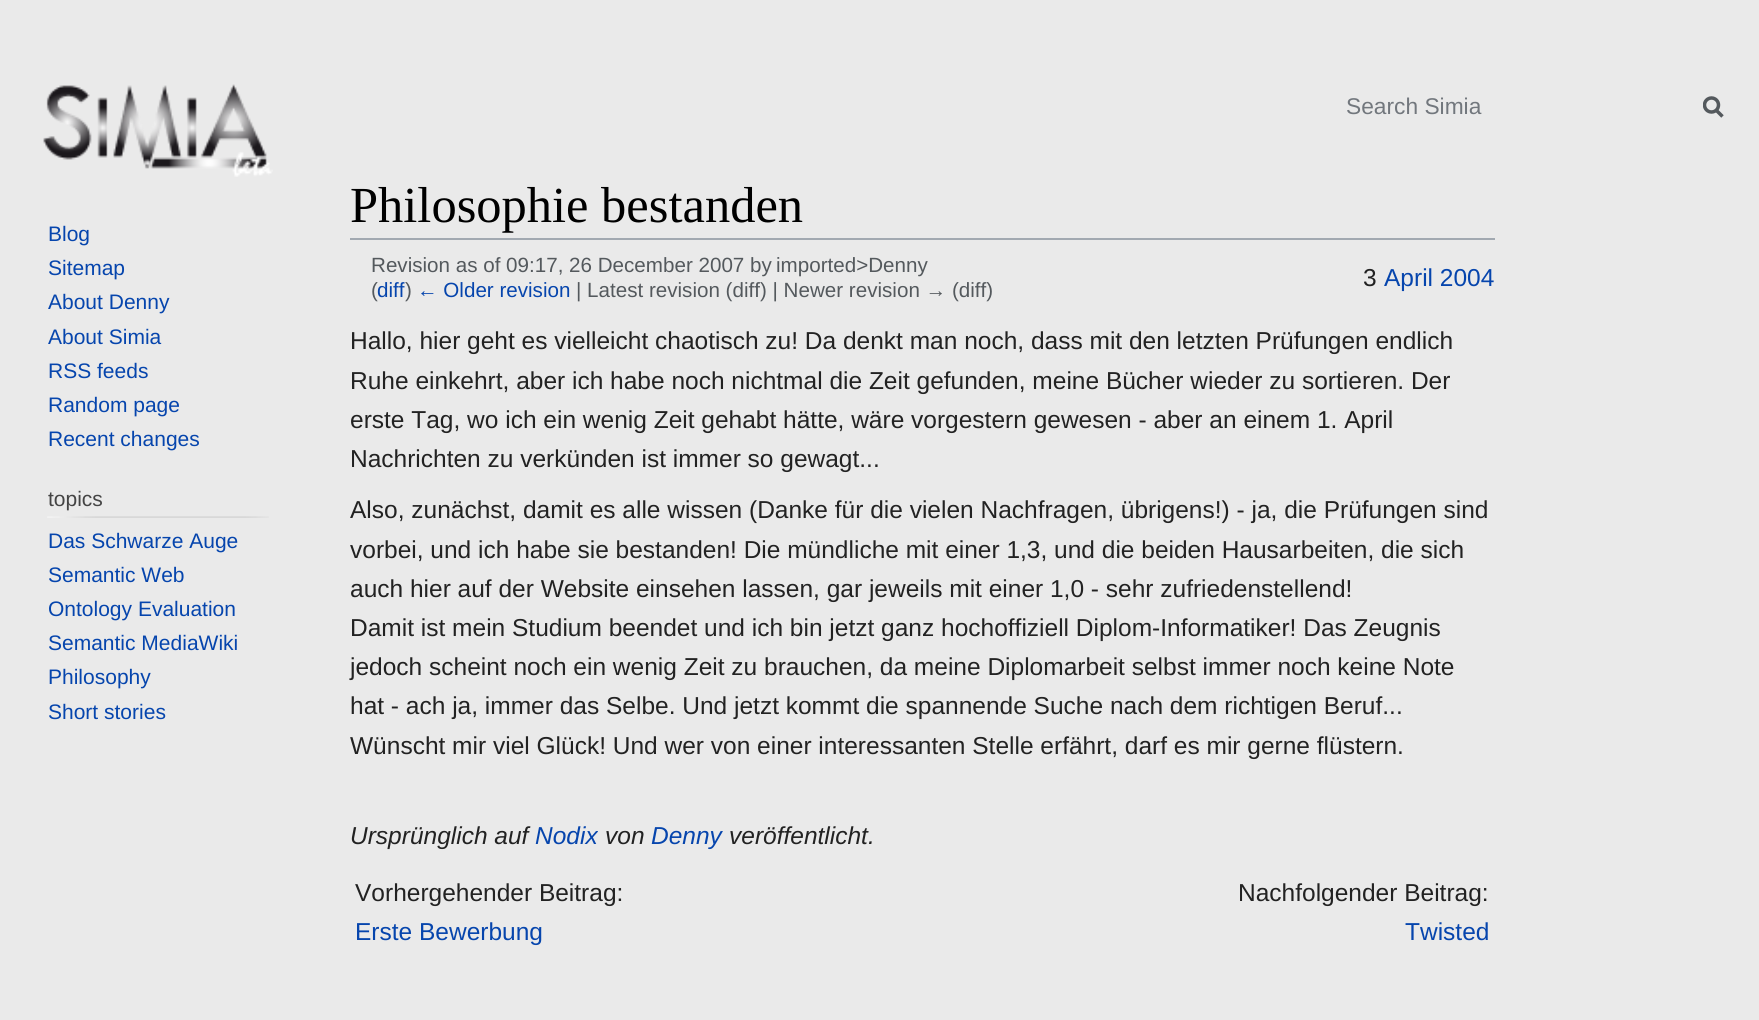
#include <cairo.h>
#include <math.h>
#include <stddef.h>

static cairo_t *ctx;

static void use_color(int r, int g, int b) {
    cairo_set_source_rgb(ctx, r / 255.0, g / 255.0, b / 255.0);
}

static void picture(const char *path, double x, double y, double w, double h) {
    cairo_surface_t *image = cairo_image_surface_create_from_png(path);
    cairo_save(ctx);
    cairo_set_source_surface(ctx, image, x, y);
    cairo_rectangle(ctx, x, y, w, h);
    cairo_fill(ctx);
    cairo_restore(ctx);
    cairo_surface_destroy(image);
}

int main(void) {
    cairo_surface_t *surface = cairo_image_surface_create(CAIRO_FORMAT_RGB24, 1759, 1020);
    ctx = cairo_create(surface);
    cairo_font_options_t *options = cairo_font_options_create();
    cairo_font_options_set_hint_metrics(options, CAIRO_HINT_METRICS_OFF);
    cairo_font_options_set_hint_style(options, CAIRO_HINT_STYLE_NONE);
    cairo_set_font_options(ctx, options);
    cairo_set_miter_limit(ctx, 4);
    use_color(234, 234, 234);
    cairo_paint(ctx);
    cairo_select_font_face(ctx, "Liberation Sans", CAIRO_FONT_SLANT_NORMAL, CAIRO_FONT_WEIGHT_NORMAL);
    cairo_set_font_size(ctx, 22.75);
    use_color(114, 119, 125);
    cairo_move_to(ctx, 1346, 114);
    cairo_show_text(ctx, "Search Simia");
    cairo_new_path(ctx);
    cairo_move_to(ctx, 1722.5, 116.5);
    cairo_line_to(ctx, 1715.5, 109.5);
    use_color(84, 89, 93);
    cairo_set_line_width(ctx, 3.5);
    cairo_stroke(ctx);
    cairo_save(ctx);
    cairo_rectangle(ctx, 1703, 96, 21, 23);
    cairo_clip(ctx);
    cairo_arc(ctx, 1711.5, 105, 7, 0, 2 * M_PI);
    cairo_stroke(ctx);
    cairo_restore(ctx);
    picture("img1.png", 43, 84, 230, 93);
    cairo_set_font_size(ctx, 21);
    use_color(6, 69, 173);
    cairo_move_to(ctx, 48, 241);
    cairo_show_text(ctx, "Blog");
    cairo_move_to(ctx, 48, 275);
    cairo_show_text(ctx, "Sitemap");
    cairo_move_to(ctx, 48, 309);
    cairo_show_text(ctx, "About Denny");
    cairo_move_to(ctx, 48, 344);
    cairo_show_text(ctx, "About Simia");
    cairo_move_to(ctx, 48, 378);
    cairo_show_text(ctx, "RSS feeds");
    cairo_move_to(ctx, 48, 412);
    cairo_show_text(ctx, "Random page");
    cairo_move_to(ctx, 48, 446);
    cairo_show_text(ctx, "Recent changes");
    use_color(68, 68, 68);
    cairo_move_to(ctx, 48, 506);
    cairo_show_text(ctx, "topics");
    picture("img2.png", 47, 516, 222, 2);
    use_color(6, 69, 173);
    cairo_move_to(ctx, 48, 548);
    cairo_show_text(ctx, "Das Schwarze Auge");
    cairo_move_to(ctx, 48, 582);
    cairo_show_text(ctx, "Semantic Web");
    cairo_move_to(ctx, 48, 616);
    cairo_show_text(ctx, "Ontology Evaluation");
    cairo_move_to(ctx, 48, 650);
    cairo_show_text(ctx, "Semantic MediaWiki");
    cairo_move_to(ctx, 48, 684);
    cairo_show_text(ctx, "Philosophy");
    cairo_move_to(ctx, 48, 719);
    cairo_show_text(ctx, "Short stories");
    use_color(162, 169, 177);
    cairo_rectangle(ctx, 350, 238, 1145, 2);
    cairo_fill(ctx);
    cairo_select_font_face(ctx, "Liberation Serif", CAIRO_FONT_SLANT_NORMAL, CAIRO_FONT_WEIGHT_NORMAL);
    cairo_set_font_size(ctx, 50.5);
    use_color(0, 0, 0);
    cairo_move_to(ctx, 350, 222);
    cairo_show_text(ctx, "Philosophie bestanden");
    cairo_select_font_face(ctx, "Liberation Sans", CAIRO_FONT_SLANT_NORMAL, CAIRO_FONT_WEIGHT_NORMAL);
    cairo_set_font_size(ctx, 20.6);
    use_color(84, 89, 93);
    cairo_move_to(ctx, 371, 272);
    cairo_show_text(ctx, "Revision as of 09:17, 26 December 2007 by");
    cairo_move_to(ctx, 776, 272);
    cairo_show_text(ctx, "imported>Denny");
    cairo_move_to(ctx, 371, 297);
    cairo_show_text(ctx, "(");
    use_color(6, 69, 173);
    cairo_move_to(ctx, 377, 297);
    cairo_show_text(ctx, "diff");
    use_color(84, 89, 93);
    cairo_move_to(ctx, 405, 297);
    cairo_show_text(ctx, ")");
    use_color(6, 69, 173);
    cairo_move_to(ctx, 417, 297);
    cairo_show_text(ctx, "← Older revision");
    use_color(84, 89, 93);
    cairo_move_to(ctx, 576, 297);
    cairo_show_text(ctx, "| Latest revision (diff) | Newer revision → (diff)");
    cairo_set_font_size(ctx, 24.5);
    use_color(34, 34, 34);
    cairo_move_to(ctx, 1363, 286);
    cairo_show_text(ctx, "3");
    use_color(6, 69, 173);
    cairo_move_to(ctx, 1384, 286);
    cairo_show_text(ctx, "April 2004");
    use_color(34, 34, 34);
    cairo_move_to(ctx, 350, 349);
    cairo_show_text(ctx, "Hallo, hier geht es vielleicht chaotisch zu! Da denkt man noch, dass mit den letzten Prüfungen endlich");
    cairo_move_to(ctx, 350, 389);
    cairo_show_text(ctx, "Ruhe einkehrt, aber ich habe noch nichtmal die Zeit gefunden, meine Bücher wieder zu sortieren. Der");
    cairo_move_to(ctx, 350, 428);
    cairo_show_text(ctx, "erste Tag, wo ich ein wenig Zeit gehabt hätte, wäre vorgestern gewesen - aber an einem 1. April");
    cairo_move_to(ctx, 350, 467);
    cairo_show_text(ctx, "Nachrichten zu verkünden ist immer so gewagt...");
    cairo_move_to(ctx, 350, 518);
    cairo_show_text(ctx, "Also, zunächst, damit es alle wissen (Danke für die vielen Nachfragen, übrigens!) - ja, die Prüfungen sind");
    cairo_move_to(ctx, 350, 558);
    cairo_show_text(ctx, "vorbei, und ich habe sie bestanden! Die mündliche mit einer 1,3, und die beiden Hausarbeiten, die sich");
    cairo_move_to(ctx, 350, 597);
    cairo_show_text(ctx, "auch hier auf der Website einsehen lassen, gar jeweils mit einer 1,0 - sehr zufriedenstellend!");
    cairo_move_to(ctx, 350, 636);
    cairo_show_text(ctx, "Damit ist mein Studium beendet und ich bin jetzt ganz hochoffiziell Diplom-Informatiker! Das Zeugnis");
    cairo_move_to(ctx, 350, 675);
    cairo_show_text(ctx, "jedoch scheint noch ein wenig Zeit zu brauchen, da meine Diplomarbeit selbst immer noch keine Note");
    cairo_move_to(ctx, 350, 714);
    cairo_show_text(ctx, "hat - ach ja, immer das Selbe. Und jetzt kommt die spannende Suche nach dem richtigen Beruf...");
    cairo_move_to(ctx, 350, 754);
    cairo_show_text(ctx, "Wünscht mir viel Glück! Und wer von einer interessanten Stelle erfährt, darf es mir gerne flüstern.");
    cairo_select_font_face(ctx, "Liberation Sans", CAIRO_FONT_SLANT_ITALIC, CAIRO_FONT_WEIGHT_NORMAL);
    cairo_move_to(ctx, 350, 844);
    cairo_show_text(ctx, "Ursprünglich auf");
    use_color(6, 69, 173);
    cairo_move_to(ctx, 535, 844);
    cairo_show_text(ctx, "Nodix");
    use_color(34, 34, 34);
    cairo_move_to(ctx, 605, 844);
    cairo_show_text(ctx, "von");
    use_color(6, 69, 173);
    cairo_move_to(ctx, 651, 844);
    cairo_show_text(ctx, "Denny");
    use_color(34, 34, 34);
    cairo_move_to(ctx, 729, 844);
    cairo_show_text(ctx, "veröffentlicht.");
    cairo_select_font_face(ctx, "Liberation Sans", CAIRO_FONT_SLANT_NORMAL, CAIRO_FONT_WEIGHT_NORMAL);
    cairo_move_to(ctx, 355, 901);
    cairo_show_text(ctx, "Vorhergehender Beitrag:");
    use_color(6, 69, 173);
    cairo_move_to(ctx, 355, 940);
    cairo_show_text(ctx, "Erste Bewerbung");
    use_color(34, 34, 34);
    cairo_move_to(ctx, 1238, 901);
    cairo_show_text(ctx, "Nachfolgender Beitrag:");
    use_color(6, 69, 173);
    cairo_move_to(ctx, 1405, 940);
    cairo_show_text(ctx, "Twisted");
    cairo_surface_write_to_png(surface, "result.png");
    cairo_font_options_destroy(options);
    cairo_destroy(ctx);
    cairo_surface_destroy(surface);
    return 0;
}
